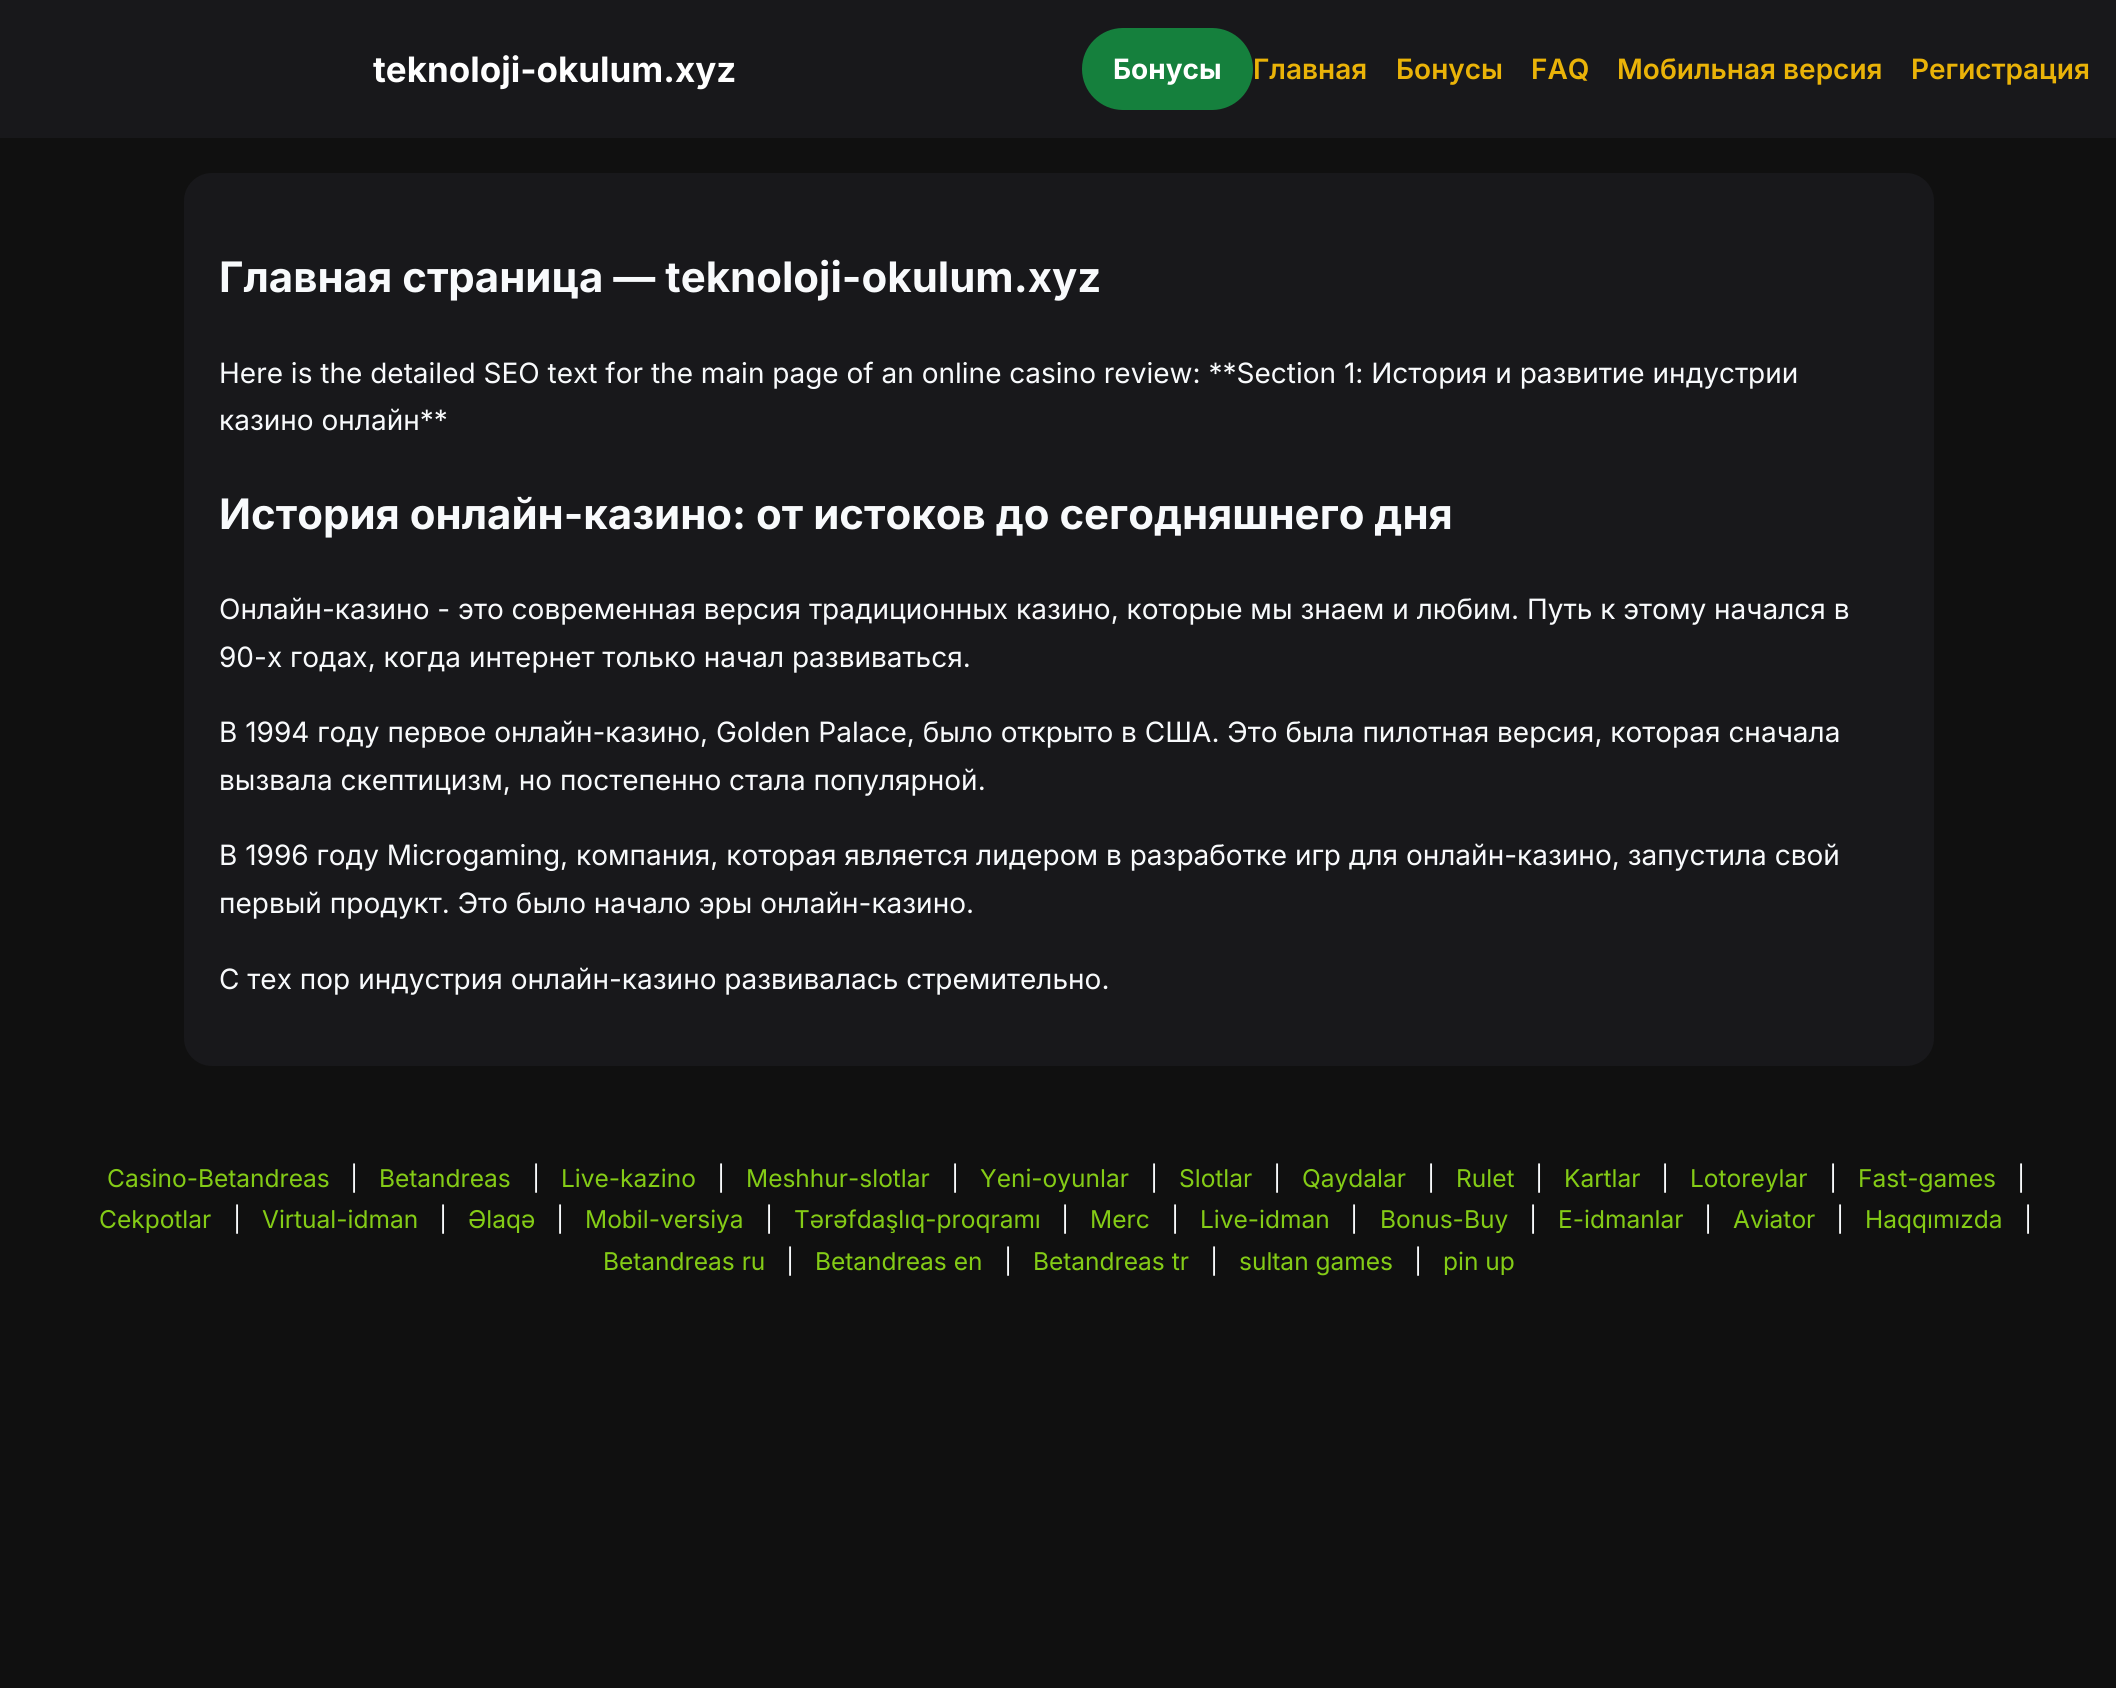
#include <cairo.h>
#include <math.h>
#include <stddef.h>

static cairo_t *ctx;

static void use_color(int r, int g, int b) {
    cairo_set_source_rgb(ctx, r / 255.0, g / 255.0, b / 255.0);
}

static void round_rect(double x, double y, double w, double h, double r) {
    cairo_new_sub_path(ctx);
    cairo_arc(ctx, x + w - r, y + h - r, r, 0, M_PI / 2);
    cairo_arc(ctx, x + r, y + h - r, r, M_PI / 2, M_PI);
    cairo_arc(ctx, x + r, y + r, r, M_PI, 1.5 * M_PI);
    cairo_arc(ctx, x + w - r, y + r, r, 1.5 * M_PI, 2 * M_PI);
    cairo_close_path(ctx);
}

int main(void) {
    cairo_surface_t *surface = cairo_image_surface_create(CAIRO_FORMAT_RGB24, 2116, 1688);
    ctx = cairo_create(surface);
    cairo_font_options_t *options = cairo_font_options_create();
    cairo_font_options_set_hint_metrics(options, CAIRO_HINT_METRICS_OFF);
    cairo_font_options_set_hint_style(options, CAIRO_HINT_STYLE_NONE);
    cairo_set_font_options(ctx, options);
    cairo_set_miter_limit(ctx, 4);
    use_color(16, 16, 16);
    cairo_paint(ctx);
    use_color(24, 24, 27);
    cairo_rectangle(ctx, 0, 0, 2116, 138);
    cairo_fill(ctx);
    cairo_select_font_face(ctx, "Inter", CAIRO_FONT_SLANT_NORMAL, CAIRO_FONT_WEIGHT_BOLD);
    cairo_set_font_size(ctx, 35);
    use_color(255, 255, 255);
    cairo_move_to(ctx, 373, 82);
    cairo_show_text(ctx, "teknoloji-okulum.xyz");
    use_color(21, 128, 61);
    round_rect(1082, 28, 171, 82, 41);
    cairo_fill(ctx);
    cairo_set_font_size(ctx, 28);
    use_color(255, 255, 255);
    cairo_move_to(ctx, 1113, 79);
    cairo_show_text(ctx, "Бонусы");
    cairo_select_font_face(ctx, "Inter SemiBold", CAIRO_FONT_SLANT_NORMAL, CAIRO_FONT_WEIGHT_NORMAL);
    use_color(234, 179, 8);
    cairo_move_to(ctx, 1253, 79);
    cairo_show_text(ctx, "Главная");
    cairo_move_to(ctx, 1396, 79);
    cairo_show_text(ctx, "Бонусы");
    cairo_move_to(ctx, 1531, 79);
    cairo_show_text(ctx, "FAQ");
    cairo_move_to(ctx, 1617, 79);
    cairo_show_text(ctx, "Мобильная версия");
    cairo_move_to(ctx, 1911, 79);
    cairo_show_text(ctx, "Регистрация");
    use_color(24, 24, 27);
    round_rect(184, 173, 1750, 893, 28);
    cairo_fill(ctx);
    cairo_select_font_face(ctx, "Inter", CAIRO_FONT_SLANT_NORMAL, CAIRO_FONT_WEIGHT_BOLD);
    cairo_set_font_size(ctx, 42);
    use_color(248, 250, 252);
    cairo_move_to(ctx, 219, 292);
    cairo_show_text(ctx, "Главная страница — teknoloji-okulum.xyz");
    cairo_select_font_face(ctx, "Inter", CAIRO_FONT_SLANT_NORMAL, CAIRO_FONT_WEIGHT_NORMAL);
    cairo_set_font_size(ctx, 28);
    cairo_move_to(ctx, 219, 383);
    cairo_show_text(ctx, "Here is the detailed SEO text for the main page of an online casino review: **Section 1: История и развитие индустрии");
    cairo_move_to(ctx, 219, 430);
    cairo_show_text(ctx, "казино онлайн**");
    cairo_select_font_face(ctx, "Inter", CAIRO_FONT_SLANT_NORMAL, CAIRO_FONT_WEIGHT_BOLD);
    cairo_set_font_size(ctx, 42);
    cairo_move_to(ctx, 219, 529);
    cairo_show_text(ctx, "История онлайн-казино: от истоков до сегодняшнего дня");
    cairo_select_font_face(ctx, "Inter", CAIRO_FONT_SLANT_NORMAL, CAIRO_FONT_WEIGHT_NORMAL);
    cairo_set_font_size(ctx, 28);
    cairo_move_to(ctx, 219, 619);
    cairo_show_text(ctx, "Онлайн-казино - это современная версия традиционных казино, которые мы знаем и любим. Путь к этому начался в");
    cairo_move_to(ctx, 219, 667);
    cairo_show_text(ctx, "90-х годах, когда интернет только начал развиваться.");
    cairo_move_to(ctx, 219, 742);
    cairo_show_text(ctx, "В 1994 году первое онлайн-казино, Golden Palace, было открыто в США. Это была пилотная версия, которая сначала");
    cairo_move_to(ctx, 219, 790);
    cairo_show_text(ctx, "вызвала скептицизм, но постепенно стала популярной.");
    cairo_move_to(ctx, 219, 865);
    cairo_show_text(ctx, "В 1996 году Microgaming, компания, которая является лидером в разработке игр для онлайн-казино, запустила свой");
    cairo_move_to(ctx, 219, 913);
    cairo_show_text(ctx, "первый продукт. Это было начало эры онлайн-казино.");
    cairo_move_to(ctx, 219, 989);
    cairo_show_text(ctx, "С тех пор индустрия онлайн-казино развивалась стремительно.");
    cairo_set_font_size(ctx, 24.5);
    use_color(132, 204, 22);
    cairo_move_to(ctx, 107, 1187);
    cairo_show_text(ctx, "Casino-Betandreas");
    use_color(248, 250, 252);
    cairo_move_to(ctx, 350, 1187);
    cairo_show_text(ctx, "|");
    use_color(132, 204, 22);
    cairo_move_to(ctx, 379, 1187);
    cairo_show_text(ctx, "Betandreas");
    use_color(248, 250, 252);
    cairo_move_to(ctx, 532, 1187);
    cairo_show_text(ctx, "|");
    use_color(132, 204, 22);
    cairo_move_to(ctx, 561, 1187);
    cairo_show_text(ctx, "Live-kazino");
    use_color(248, 250, 252);
    cairo_move_to(ctx, 717, 1187);
    cairo_show_text(ctx, "|");
    use_color(132, 204, 22);
    cairo_move_to(ctx, 746, 1187);
    cairo_show_text(ctx, "Meshhur-slotlar");
    use_color(248, 250, 252);
    cairo_move_to(ctx, 951, 1187);
    cairo_show_text(ctx, "|");
    use_color(132, 204, 22);
    cairo_move_to(ctx, 980, 1187);
    cairo_show_text(ctx, "Yeni-oyunlar");
    use_color(248, 250, 252);
    cairo_move_to(ctx, 1150, 1187);
    cairo_show_text(ctx, "|");
    use_color(132, 204, 22);
    cairo_move_to(ctx, 1179, 1187);
    cairo_show_text(ctx, "Slotlar");
    use_color(248, 250, 252);
    cairo_move_to(ctx, 1273, 1187);
    cairo_show_text(ctx, "|");
    use_color(132, 204, 22);
    cairo_move_to(ctx, 1302, 1187);
    cairo_show_text(ctx, "Qaydalar");
    use_color(248, 250, 252);
    cairo_move_to(ctx, 1427, 1187);
    cairo_show_text(ctx, "|");
    use_color(132, 204, 22);
    cairo_move_to(ctx, 1456, 1187);
    cairo_show_text(ctx, "Rulet");
    use_color(248, 250, 252);
    cairo_move_to(ctx, 1535, 1187);
    cairo_show_text(ctx, "|");
    use_color(132, 204, 22);
    cairo_move_to(ctx, 1564, 1187);
    cairo_show_text(ctx, "Kartlar");
    use_color(248, 250, 252);
    cairo_move_to(ctx, 1661, 1187);
    cairo_show_text(ctx, "|");
    use_color(132, 204, 22);
    cairo_move_to(ctx, 1690, 1187);
    cairo_show_text(ctx, "Lotoreylar");
    use_color(248, 250, 252);
    cairo_move_to(ctx, 1829, 1187);
    cairo_show_text(ctx, "|");
    use_color(132, 204, 22);
    cairo_move_to(ctx, 1858, 1187);
    cairo_show_text(ctx, "Fast-games");
    use_color(248, 250, 252);
    cairo_move_to(ctx, 2017, 1187);
    cairo_show_text(ctx, "|");
    use_color(132, 204, 22);
    cairo_move_to(ctx, 99, 1228);
    cairo_show_text(ctx, "Cekpotlar");
    use_color(248, 250, 252);
    cairo_move_to(ctx, 233, 1228);
    cairo_show_text(ctx, "|");
    use_color(132, 204, 22);
    cairo_move_to(ctx, 262, 1228);
    cairo_show_text(ctx, "Virtual-idman");
    use_color(248, 250, 252);
    cairo_move_to(ctx, 439, 1228);
    cairo_show_text(ctx, "|");
    use_color(132, 204, 22);
    cairo_move_to(ctx, 468, 1228);
    cairo_show_text(ctx, "Əlaqə");
    use_color(248, 250, 252);
    cairo_move_to(ctx, 556, 1228);
    cairo_show_text(ctx, "|");
    use_color(132, 204, 22);
    cairo_move_to(ctx, 585, 1228);
    cairo_show_text(ctx, "Mobil-versiya");
    use_color(248, 250, 252);
    cairo_move_to(ctx, 765, 1228);
    cairo_show_text(ctx, "|");
    use_color(132, 204, 22);
    cairo_move_to(ctx, 794, 1228);
    cairo_show_text(ctx, "Tərəfdaşlıq-proqramı");
    use_color(248, 250, 252);
    cairo_move_to(ctx, 1061, 1228);
    cairo_show_text(ctx, "|");
    use_color(132, 204, 22);
    cairo_move_to(ctx, 1090, 1228);
    cairo_show_text(ctx, "Merc");
    use_color(248, 250, 252);
    cairo_move_to(ctx, 1171, 1228);
    cairo_show_text(ctx, "|");
    use_color(132, 204, 22);
    cairo_move_to(ctx, 1200, 1228);
    cairo_show_text(ctx, "Live-idman");
    use_color(248, 250, 252);
    cairo_move_to(ctx, 1350, 1228);
    cairo_show_text(ctx, "|");
    use_color(132, 204, 22);
    cairo_move_to(ctx, 1380, 1228);
    cairo_show_text(ctx, "Bonus-Buy");
    use_color(248, 250, 252);
    cairo_move_to(ctx, 1529, 1228);
    cairo_show_text(ctx, "|");
    use_color(132, 204, 22);
    cairo_move_to(ctx, 1558, 1228);
    cairo_show_text(ctx, "E-idmanlar");
    use_color(248, 250, 252);
    cairo_move_to(ctx, 1704, 1228);
    cairo_show_text(ctx, "|");
    use_color(132, 204, 22);
    cairo_move_to(ctx, 1733, 1228);
    cairo_show_text(ctx, "Aviator");
    use_color(248, 250, 252);
    cairo_move_to(ctx, 1836, 1228);
    cairo_show_text(ctx, "|");
    use_color(132, 204, 22);
    cairo_move_to(ctx, 1865, 1228);
    cairo_show_text(ctx, "Haqqımızda");
    use_color(248, 250, 252);
    cairo_move_to(ctx, 2024, 1228);
    cairo_show_text(ctx, "|");
    use_color(132, 204, 22);
    cairo_move_to(ctx, 603, 1270);
    cairo_show_text(ctx, "Betandreas ru");
    use_color(248, 250, 252);
    cairo_move_to(ctx, 786, 1270);
    cairo_show_text(ctx, "|");
    use_color(132, 204, 22);
    cairo_move_to(ctx, 815, 1270);
    cairo_show_text(ctx, "Betandreas en");
    use_color(248, 250, 252);
    cairo_move_to(ctx, 1004, 1270);
    cairo_show_text(ctx, "|");
    use_color(132, 204, 22);
    cairo_move_to(ctx, 1033, 1270);
    cairo_show_text(ctx, "Betandreas tr");
    use_color(248, 250, 252);
    cairo_move_to(ctx, 1210, 1270);
    cairo_show_text(ctx, "|");
    use_color(132, 204, 22);
    cairo_move_to(ctx, 1239, 1270);
    cairo_show_text(ctx, "sultan games");
    use_color(248, 250, 252);
    cairo_move_to(ctx, 1414, 1270);
    cairo_show_text(ctx, "|");
    use_color(132, 204, 22);
    cairo_move_to(ctx, 1443, 1270);
    cairo_show_text(ctx, "pin up");
    cairo_surface_write_to_png(surface, "result.png");
    cairo_font_options_destroy(options);
    cairo_destroy(ctx);
    cairo_surface_destroy(surface);
    return 0;
}
